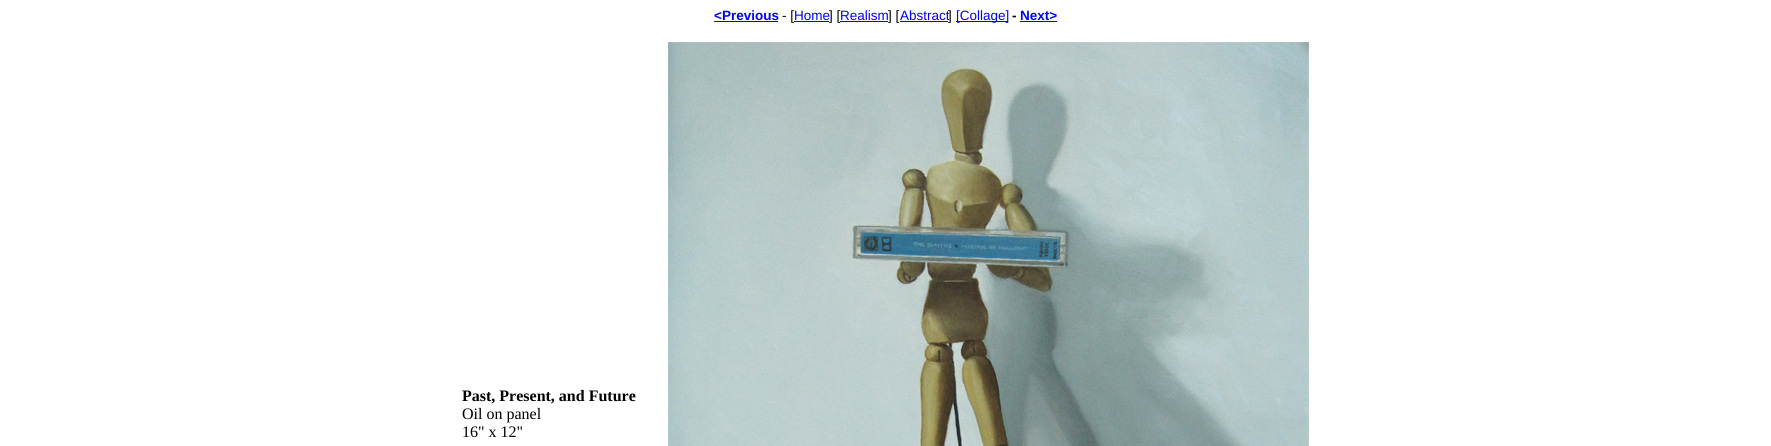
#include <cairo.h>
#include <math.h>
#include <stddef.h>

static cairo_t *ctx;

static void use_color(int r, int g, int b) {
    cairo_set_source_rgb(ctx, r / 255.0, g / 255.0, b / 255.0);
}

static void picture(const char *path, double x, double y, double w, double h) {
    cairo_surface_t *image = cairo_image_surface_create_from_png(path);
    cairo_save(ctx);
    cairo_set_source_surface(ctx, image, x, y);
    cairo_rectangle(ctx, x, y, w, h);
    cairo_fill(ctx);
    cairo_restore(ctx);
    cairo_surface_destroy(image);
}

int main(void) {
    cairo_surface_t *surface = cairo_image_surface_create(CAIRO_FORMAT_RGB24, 1771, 446);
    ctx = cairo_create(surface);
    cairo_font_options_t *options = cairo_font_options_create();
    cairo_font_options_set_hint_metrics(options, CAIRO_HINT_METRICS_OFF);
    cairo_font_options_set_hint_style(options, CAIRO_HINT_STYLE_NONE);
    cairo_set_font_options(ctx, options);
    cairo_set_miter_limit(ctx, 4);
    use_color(255, 255, 255);
    cairo_paint(ctx);
    cairo_select_font_face(ctx, "Liberation Sans", CAIRO_FONT_SLANT_NORMAL, CAIRO_FONT_WEIGHT_BOLD);
    cairo_set_font_size(ctx, 13.5);
    use_color(0, 0, 255);
    cairo_move_to(ctx, 714, 20);
    cairo_show_text(ctx, "<Previous");
    cairo_rectangle(ctx, 714, 21, 64, 1);
    cairo_fill(ctx);
    cairo_select_font_face(ctx, "Liberation Sans", CAIRO_FONT_SLANT_NORMAL, CAIRO_FONT_WEIGHT_NORMAL);
    use_color(0, 0, 0);
    cairo_move_to(ctx, 782, 20);
    cairo_show_text(ctx, "- [");
    use_color(0, 0, 255);
    cairo_move_to(ctx, 794, 20);
    cairo_show_text(ctx, "Home");
    use_color(0, 0, 0);
    cairo_move_to(ctx, 829, 20);
    cairo_show_text(ctx, "] [");
    use_color(0, 0, 255);
    cairo_rectangle(ctx, 794, 21, 35, 1);
    cairo_fill(ctx);
    cairo_rectangle(ctx, 840, 21, 48, 1);
    cairo_fill(ctx);
    cairo_move_to(ctx, 840, 20);
    cairo_show_text(ctx, "Realism");
    use_color(0, 0, 0);
    cairo_move_to(ctx, 888, 20);
    cairo_show_text(ctx, "] [");
    use_color(0, 0, 255);
    cairo_rectangle(ctx, 900, 21, 48, 1);
    cairo_fill(ctx);
    cairo_move_to(ctx, 900, 20);
    cairo_show_text(ctx, "Abstract");
    use_color(0, 0, 0);
    cairo_move_to(ctx, 948, 20);
    cairo_show_text(ctx, "]");
    use_color(0, 0, 255);
    cairo_rectangle(ctx, 956, 21, 52, 1);
    cairo_fill(ctx);
    cairo_move_to(ctx, 956, 20);
    cairo_show_text(ctx, "[Collage]");
    cairo_select_font_face(ctx, "Liberation Sans", CAIRO_FONT_SLANT_NORMAL, CAIRO_FONT_WEIGHT_BOLD);
    use_color(0, 0, 0);
    cairo_move_to(ctx, 1012, 20);
    cairo_show_text(ctx, "-");
    use_color(0, 0, 255);
    cairo_move_to(ctx, 1020, 20);
    cairo_show_text(ctx, "Next>");
    cairo_rectangle(ctx, 1020, 21, 37, 1);
    cairo_fill(ctx);
    cairo_select_font_face(ctx, "Liberation Serif", CAIRO_FONT_SLANT_NORMAL, CAIRO_FONT_WEIGHT_BOLD);
    cairo_set_font_size(ctx, 16);
    use_color(0, 0, 0);
    cairo_move_to(ctx, 462, 401);
    cairo_show_text(ctx, "Past, Present, and Future");
    cairo_select_font_face(ctx, "Liberation Serif", CAIRO_FONT_SLANT_NORMAL, CAIRO_FONT_WEIGHT_NORMAL);
    cairo_move_to(ctx, 462, 419);
    cairo_show_text(ctx, "Oil on panel");
    cairo_move_to(ctx, 462, 437);
    cairo_show_text(ctx, "16\" x 12\"");
    picture("img1.png", 668, 42, 641, 404);
    cairo_surface_write_to_png(surface, "result.png");
    cairo_font_options_destroy(options);
    cairo_destroy(ctx);
    cairo_surface_destroy(surface);
    return 0;
}
